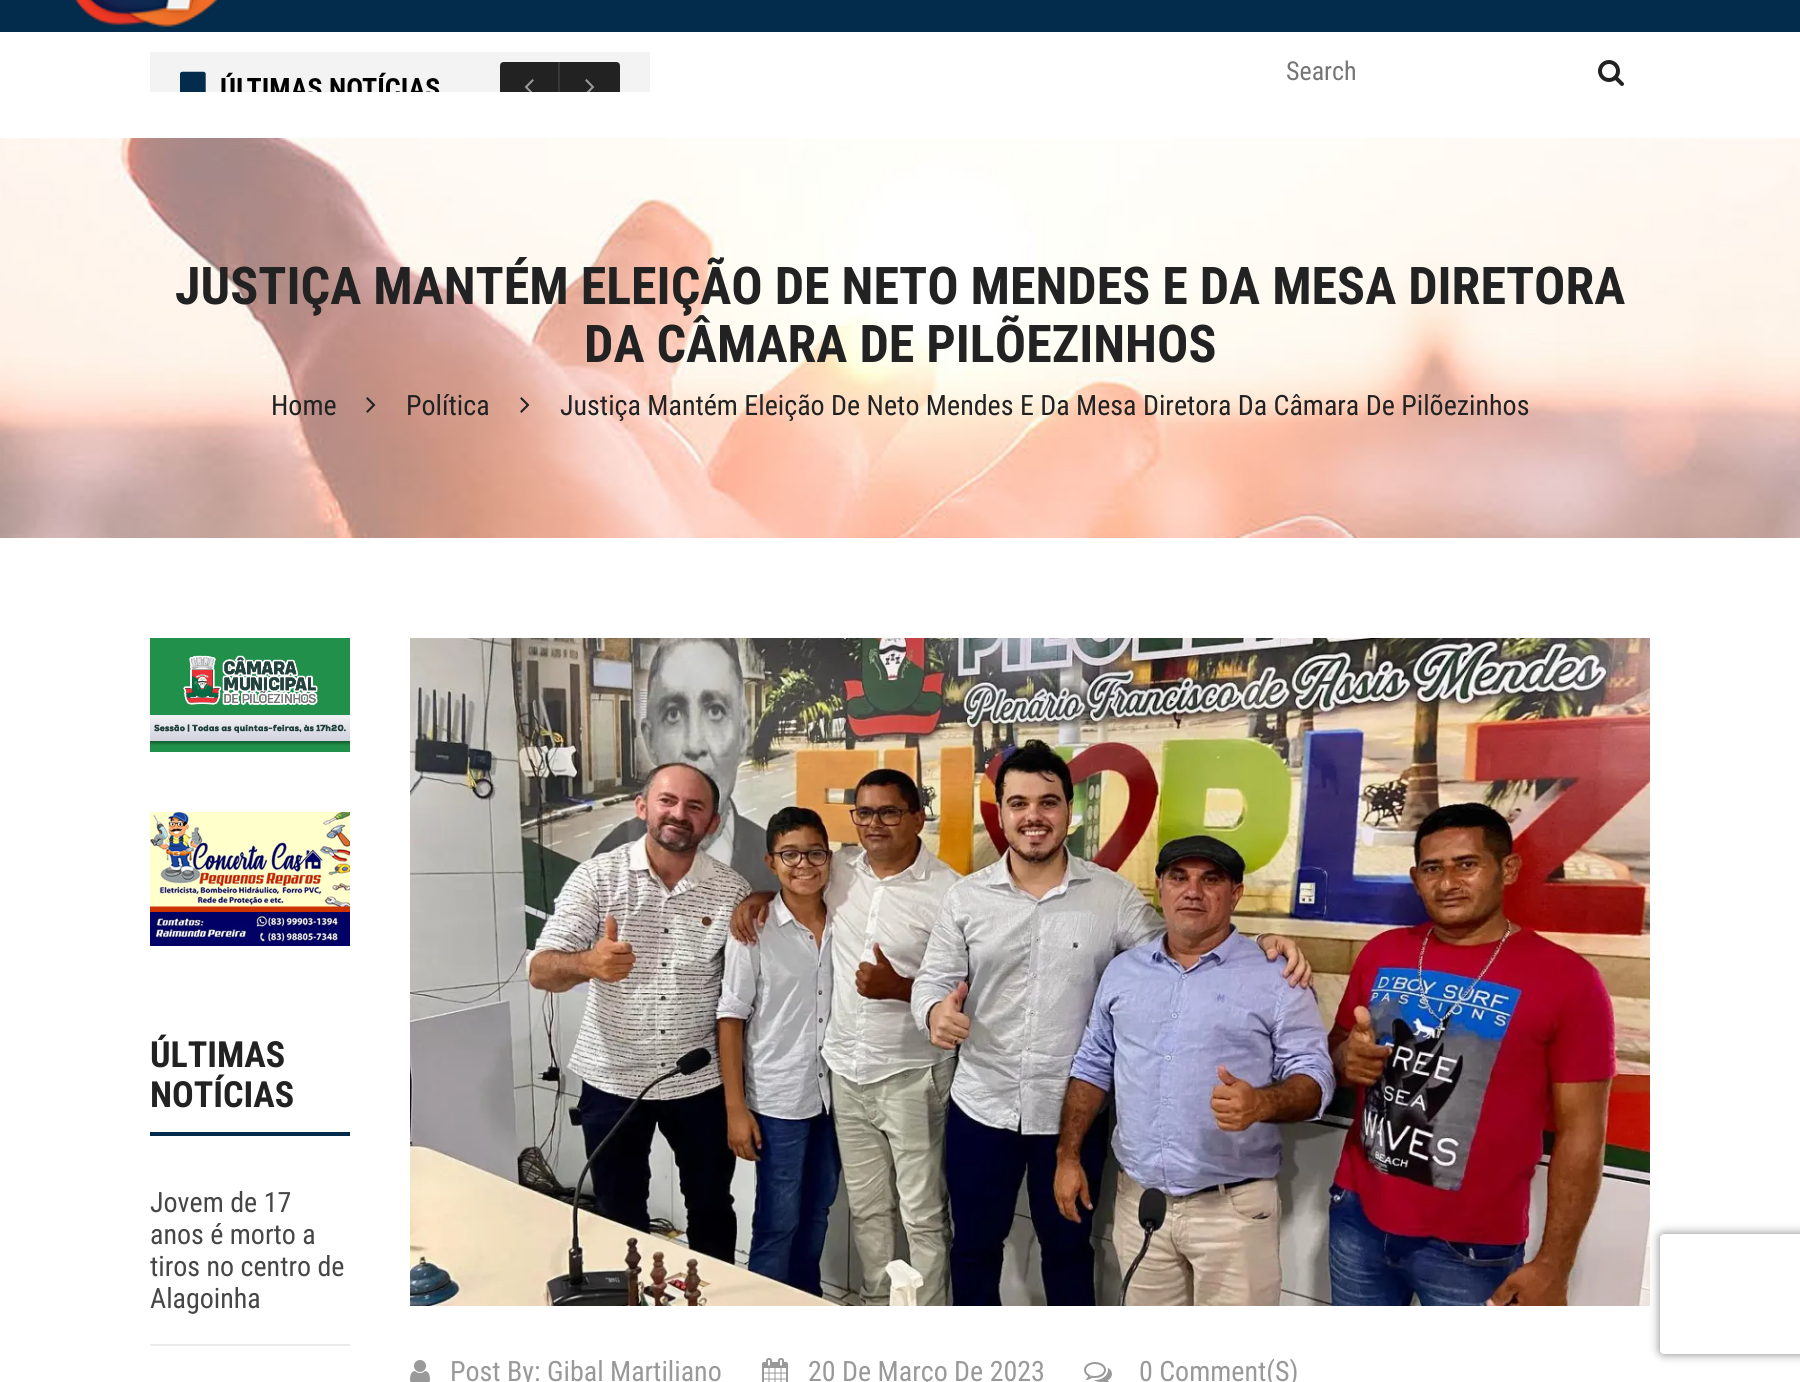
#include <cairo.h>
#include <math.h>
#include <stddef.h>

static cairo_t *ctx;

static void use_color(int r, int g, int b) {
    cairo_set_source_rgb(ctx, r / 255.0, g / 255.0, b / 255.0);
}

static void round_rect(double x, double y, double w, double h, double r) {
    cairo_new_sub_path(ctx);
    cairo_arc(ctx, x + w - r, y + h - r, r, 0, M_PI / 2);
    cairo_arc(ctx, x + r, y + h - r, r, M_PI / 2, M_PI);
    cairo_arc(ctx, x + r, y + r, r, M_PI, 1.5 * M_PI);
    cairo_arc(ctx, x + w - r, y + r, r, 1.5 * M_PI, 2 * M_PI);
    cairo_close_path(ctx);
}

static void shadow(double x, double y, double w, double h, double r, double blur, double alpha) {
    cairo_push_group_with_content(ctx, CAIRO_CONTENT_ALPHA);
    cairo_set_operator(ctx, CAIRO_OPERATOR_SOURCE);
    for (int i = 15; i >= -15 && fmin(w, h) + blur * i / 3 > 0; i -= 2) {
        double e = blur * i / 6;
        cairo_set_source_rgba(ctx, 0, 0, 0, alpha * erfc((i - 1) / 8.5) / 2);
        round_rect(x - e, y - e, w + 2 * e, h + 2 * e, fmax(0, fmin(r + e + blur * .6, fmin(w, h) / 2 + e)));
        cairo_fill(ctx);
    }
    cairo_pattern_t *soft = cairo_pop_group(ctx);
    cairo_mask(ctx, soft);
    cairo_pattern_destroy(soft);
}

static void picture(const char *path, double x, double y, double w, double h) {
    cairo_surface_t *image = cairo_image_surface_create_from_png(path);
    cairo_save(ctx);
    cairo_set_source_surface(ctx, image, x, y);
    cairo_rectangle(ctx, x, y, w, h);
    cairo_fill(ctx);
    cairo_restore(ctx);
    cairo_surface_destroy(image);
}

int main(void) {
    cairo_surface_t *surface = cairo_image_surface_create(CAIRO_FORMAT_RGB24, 1800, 1382);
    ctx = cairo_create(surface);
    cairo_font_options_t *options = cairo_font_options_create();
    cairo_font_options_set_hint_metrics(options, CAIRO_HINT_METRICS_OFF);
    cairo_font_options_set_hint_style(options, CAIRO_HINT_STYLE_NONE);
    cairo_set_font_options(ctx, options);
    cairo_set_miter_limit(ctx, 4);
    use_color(255, 255, 255);
    cairo_paint(ctx);
    use_color(3, 43, 75);
    cairo_rectangle(ctx, 0, 0, 1800, 32);
    cairo_fill(ctx);
    picture("img1.png", 74, 0, 143, 27);
    picture("img2.png", 150, 52, 500, 40);
    cairo_select_font_face(ctx, "Roboto Condensed", CAIRO_FONT_SLANT_NORMAL, CAIRO_FONT_WEIGHT_NORMAL);
    cairo_set_font_size(ctx, 26);
    use_color(117, 117, 117);
    cairo_move_to(ctx, 1286, 80);
    cairo_show_text(ctx, "Search");
    picture("img3.png", 1598, 60, 26, 26);
    picture("img4.png", 0, 138, 1800, 400);
    cairo_select_font_face(ctx, "Roboto Condensed", CAIRO_FONT_SLANT_NORMAL, CAIRO_FONT_WEIGHT_BOLD);
    cairo_set_font_size(ctx, 52);
    use_color(34, 34, 34);
    cairo_move_to(ctx, 175, 304);
    cairo_show_text(ctx, "JUSTIÇA MANTÉM ELEIÇÃO DE NETO MENDES E DA MESA DIRETORA");
    cairo_move_to(ctx, 584, 362);
    cairo_show_text(ctx, "DA CÂMARA DE PILÕEZINHOS");
    cairo_select_font_face(ctx, "Roboto Condensed", CAIRO_FONT_SLANT_NORMAL, CAIRO_FONT_WEIGHT_NORMAL);
    cairo_set_font_size(ctx, 28);
    cairo_move_to(ctx, 271, 415);
    cairo_show_text(ctx, "Home");
    picture("img5.png", 366, 397, 10, 16);
    cairo_move_to(ctx, 406, 415);
    cairo_show_text(ctx, "Política");
    picture("img6.png", 520, 397, 10, 16);
    cairo_move_to(ctx, 560, 415);
    cairo_show_text(ctx, "Justiça Mantém Eleição De Neto Mendes E Da Mesa Diretora Da Câmara De Pilõezinhos");
    picture("img7.png", 150, 638, 200, 114);
    picture("img8.png", 150, 812, 200, 134);
    cairo_select_font_face(ctx, "Roboto Condensed", CAIRO_FONT_SLANT_NORMAL, CAIRO_FONT_WEIGHT_BOLD);
    cairo_set_font_size(ctx, 36);
    cairo_move_to(ctx, 150, 1067);
    cairo_show_text(ctx, "ÚLTIMAS");
    cairo_move_to(ctx, 150, 1107);
    cairo_show_text(ctx, "NOTÍCIAS");
    use_color(3, 43, 75);
    cairo_rectangle(ctx, 150, 1132, 200, 4);
    cairo_fill(ctx);
    use_color(235, 235, 235);
    cairo_rectangle(ctx, 150, 1344, 200, 2);
    cairo_fill(ctx);
    cairo_select_font_face(ctx, "Roboto Condensed", CAIRO_FONT_SLANT_NORMAL, CAIRO_FONT_WEIGHT_NORMAL);
    cairo_set_font_size(ctx, 28);
    use_color(70, 70, 70);
    cairo_move_to(ctx, 150, 1212);
    cairo_show_text(ctx, "Jovem de 17");
    cairo_move_to(ctx, 150, 1244);
    cairo_show_text(ctx, "anos é morto a");
    cairo_move_to(ctx, 150, 1276);
    cairo_show_text(ctx, "tiros no centro de");
    cairo_move_to(ctx, 150, 1308);
    cairo_show_text(ctx, "Alagoinha");
    picture("img9.png", 410, 638, 1240, 668);
    picture("img10.png", 410, 1360, 20, 22);
    use_color(153, 153, 153);
    cairo_move_to(ctx, 450, 1381);
    cairo_show_text(ctx, "Post By: Gibal Martiliano");
    picture("img11.png", 762, 1358, 26, 24);
    cairo_move_to(ctx, 808, 1381);
    cairo_show_text(ctx, "20 De Março De 2023");
    picture("img12.png", 1084, 1362, 28, 20);
    cairo_move_to(ctx, 1139, 1381);
    cairo_show_text(ctx, "0 Comment(S)");
    cairo_save(ctx);
    cairo_set_fill_rule(ctx, CAIRO_FILL_RULE_EVEN_ODD);
    cairo_new_path(ctx);
    cairo_move_to(ctx, 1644, 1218);
    cairo_line_to(ctx, 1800, 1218);
    cairo_line_to(ctx, 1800, 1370);
    cairo_line_to(ctx, 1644, 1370);
    cairo_close_path(ctx);
    cairo_move_to(ctx, 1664, 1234);
    cairo_line_to(ctx, 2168, 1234);
    cairo_curve_to(ctx, 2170, 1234, 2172, 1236, 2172, 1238);
    cairo_line_to(ctx, 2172, 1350);
    cairo_curve_to(ctx, 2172, 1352, 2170, 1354, 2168, 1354);
    cairo_line_to(ctx, 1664, 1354);
    cairo_curve_to(ctx, 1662, 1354, 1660, 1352, 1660, 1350);
    cairo_line_to(ctx, 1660, 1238);
    cairo_curve_to(ctx, 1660, 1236, 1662, 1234, 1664, 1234);
    cairo_close_path(ctx);
    cairo_clip(ctx);
    use_color(128, 128, 128);
    shadow(1660, 1234, 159, 120, 4, 5, 1);
    cairo_restore(ctx);
    cairo_surface_write_to_png(surface, "result.png");
    cairo_font_options_destroy(options);
    cairo_destroy(ctx);
    cairo_surface_destroy(surface);
    return 0;
}
